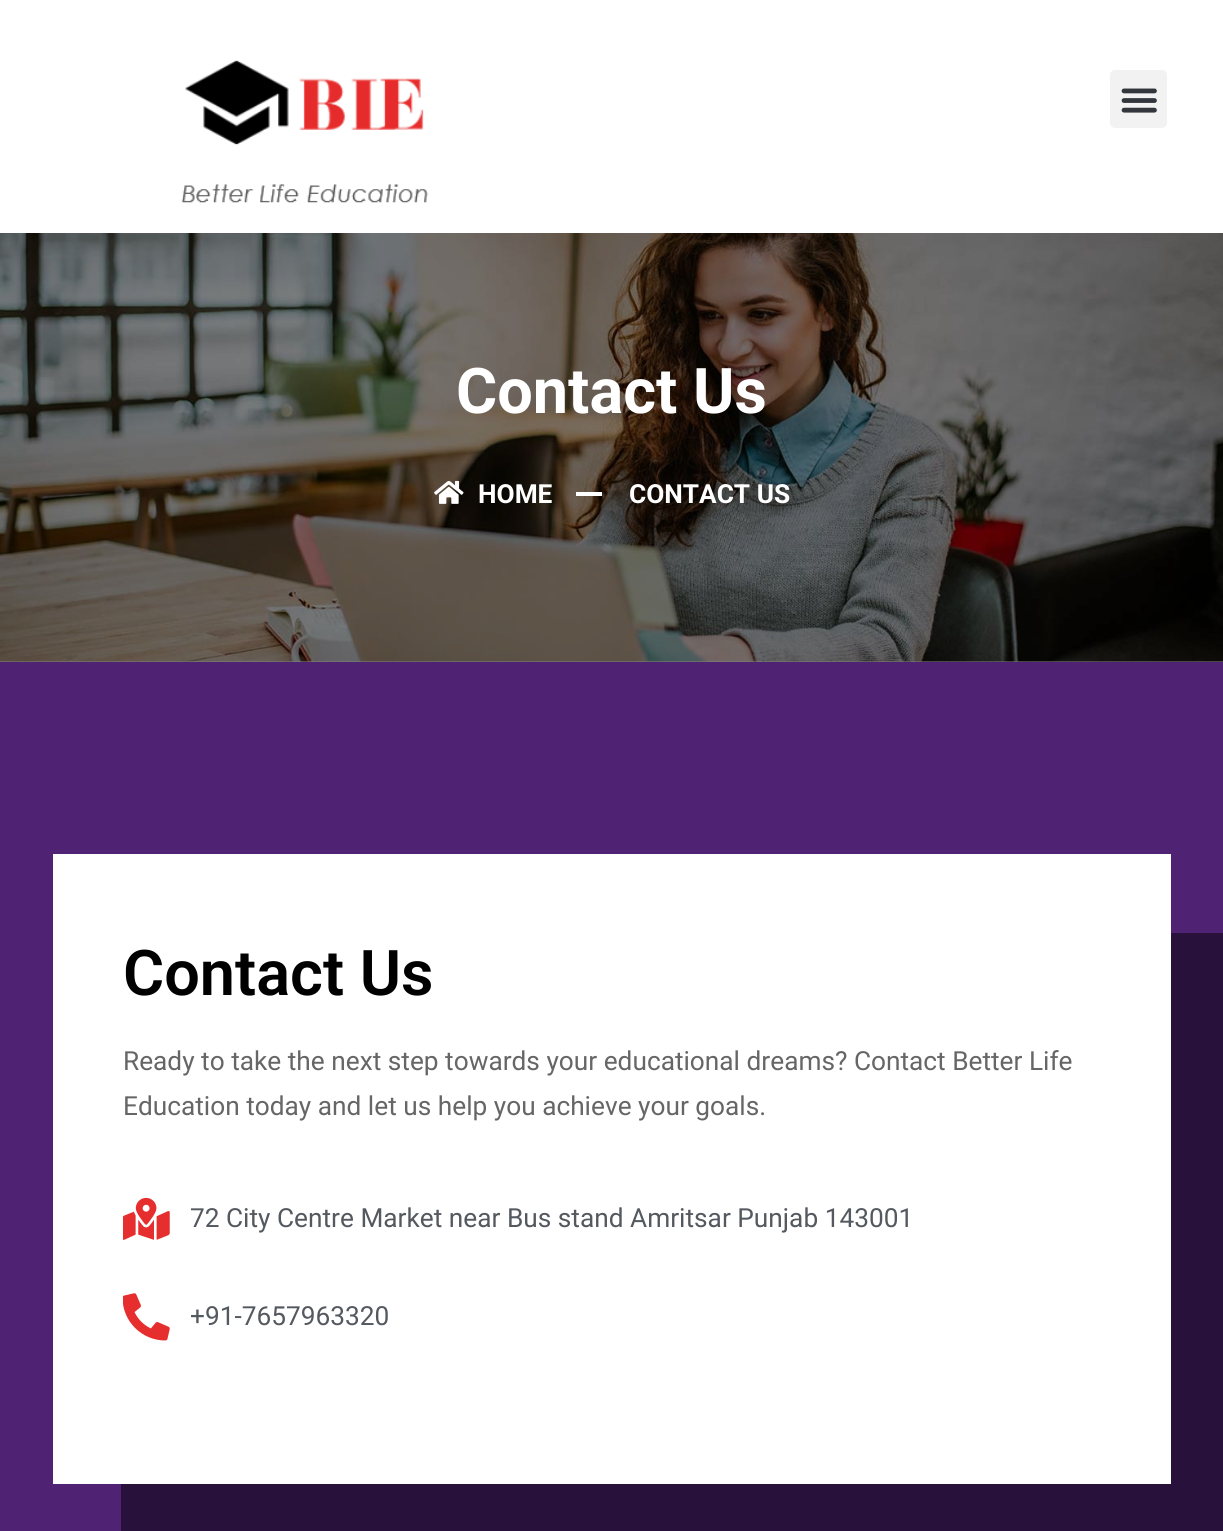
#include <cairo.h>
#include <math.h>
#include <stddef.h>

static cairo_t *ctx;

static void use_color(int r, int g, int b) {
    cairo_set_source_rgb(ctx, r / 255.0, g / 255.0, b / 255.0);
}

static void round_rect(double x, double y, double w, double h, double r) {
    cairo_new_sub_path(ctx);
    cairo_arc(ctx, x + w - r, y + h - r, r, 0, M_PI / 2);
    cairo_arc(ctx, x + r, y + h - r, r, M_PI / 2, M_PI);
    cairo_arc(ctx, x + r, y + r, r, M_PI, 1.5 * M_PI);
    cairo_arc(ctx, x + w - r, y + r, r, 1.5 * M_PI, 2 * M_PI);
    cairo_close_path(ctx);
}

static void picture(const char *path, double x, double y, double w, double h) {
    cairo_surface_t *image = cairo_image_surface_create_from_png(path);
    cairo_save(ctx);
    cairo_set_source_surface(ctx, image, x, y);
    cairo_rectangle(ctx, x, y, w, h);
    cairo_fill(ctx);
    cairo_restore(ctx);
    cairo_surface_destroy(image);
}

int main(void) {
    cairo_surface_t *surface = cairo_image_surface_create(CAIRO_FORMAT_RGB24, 1223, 1531);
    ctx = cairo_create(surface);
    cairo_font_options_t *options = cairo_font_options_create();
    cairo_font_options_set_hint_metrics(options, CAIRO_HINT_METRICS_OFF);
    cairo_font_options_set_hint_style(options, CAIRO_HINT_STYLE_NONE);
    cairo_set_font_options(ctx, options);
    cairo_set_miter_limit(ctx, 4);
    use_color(128, 128, 128);
    cairo_paint(ctx);
    use_color(255, 255, 255);
    cairo_rectangle(ctx, 0, 0, 1223, 233);
    cairo_fill(ctx);
    picture("img1.png", 181, 60, 247, 143);
    use_color(242, 242, 242);
    round_rect(1110, 70, 57, 58, 5);
    cairo_fill(ctx);
    picture("img2.png", 1121, 88, 36, 25);
    picture("img3.png", 0, 233, 1223, 429);
    cairo_select_font_face(ctx, "Roboto", CAIRO_FONT_SLANT_NORMAL, CAIRO_FONT_WEIGHT_BOLD);
    cairo_set_font_size(ctx, 63);
    use_color(255, 255, 255);
    cairo_move_to(ctx, 456, 413);
    cairo_show_text(ctx, "Contact Us");
    picture("img4.png", 434, 480, 30, 24);
    cairo_set_font_size(ctx, 26.25);
    cairo_move_to(ctx, 478, 503);
    cairo_show_text(ctx, "HOME");
    cairo_rectangle(ctx, 576, 492, 26, 4);
    cairo_fill(ctx);
    cairo_move_to(ctx, 629, 503);
    cairo_show_text(ctx, "CONTACT US");
    use_color(80, 34, 116);
    cairo_rectangle(ctx, 0, 662, 1223, 869);
    cairo_fill(ctx);
    use_color(40, 17, 58);
    cairo_new_path(ctx);
    cairo_move_to(ctx, 121, 1484);
    cairo_line_to(ctx, 121, 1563);
    cairo_line_to(ctx, 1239, 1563);
    cairo_line_to(ctx, 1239, 933);
    cairo_line_to(ctx, 1171, 933);
    cairo_line_to(ctx, 1171, 1484);
    cairo_close_path(ctx);
    cairo_fill(ctx);
    use_color(255, 255, 255);
    cairo_rectangle(ctx, 53, 854, 1118, 630);
    cairo_fill(ctx);
    cairo_select_font_face(ctx, "Roboto SemiBold", CAIRO_FONT_SLANT_NORMAL, CAIRO_FONT_WEIGHT_NORMAL);
    cairo_set_font_size(ctx, 63);
    use_color(0, 0, 0);
    cairo_move_to(ctx, 123, 995);
    cairo_show_text(ctx, "Contact Us");
    cairo_select_font_face(ctx, "Roboto", CAIRO_FONT_SLANT_NORMAL, CAIRO_FONT_WEIGHT_NORMAL);
    cairo_set_font_size(ctx, 26.25);
    use_color(102, 102, 102);
    cairo_move_to(ctx, 123, 1070);
    cairo_show_text(ctx, "Ready to take the next step towards your educational dreams? Contact Better Life");
    cairo_move_to(ctx, 123, 1115);
    cairo_show_text(ctx, "Education today and let us help you achieve your goals.");
    picture("img5.png", 123, 1197, 47, 43);
    use_color(84, 89, 95);
    cairo_move_to(ctx, 190, 1227);
    cairo_show_text(ctx, "72 City Centre Market near Bus stand Amritsar Punjab 143001");
    picture("img6.png", 123, 1293, 47, 48);
    cairo_move_to(ctx, 190, 1325);
    cairo_show_text(ctx, "+91-7657963320");
    cairo_surface_write_to_png(surface, "result.png");
    cairo_font_options_destroy(options);
    cairo_destroy(ctx);
    cairo_surface_destroy(surface);
    return 0;
}
